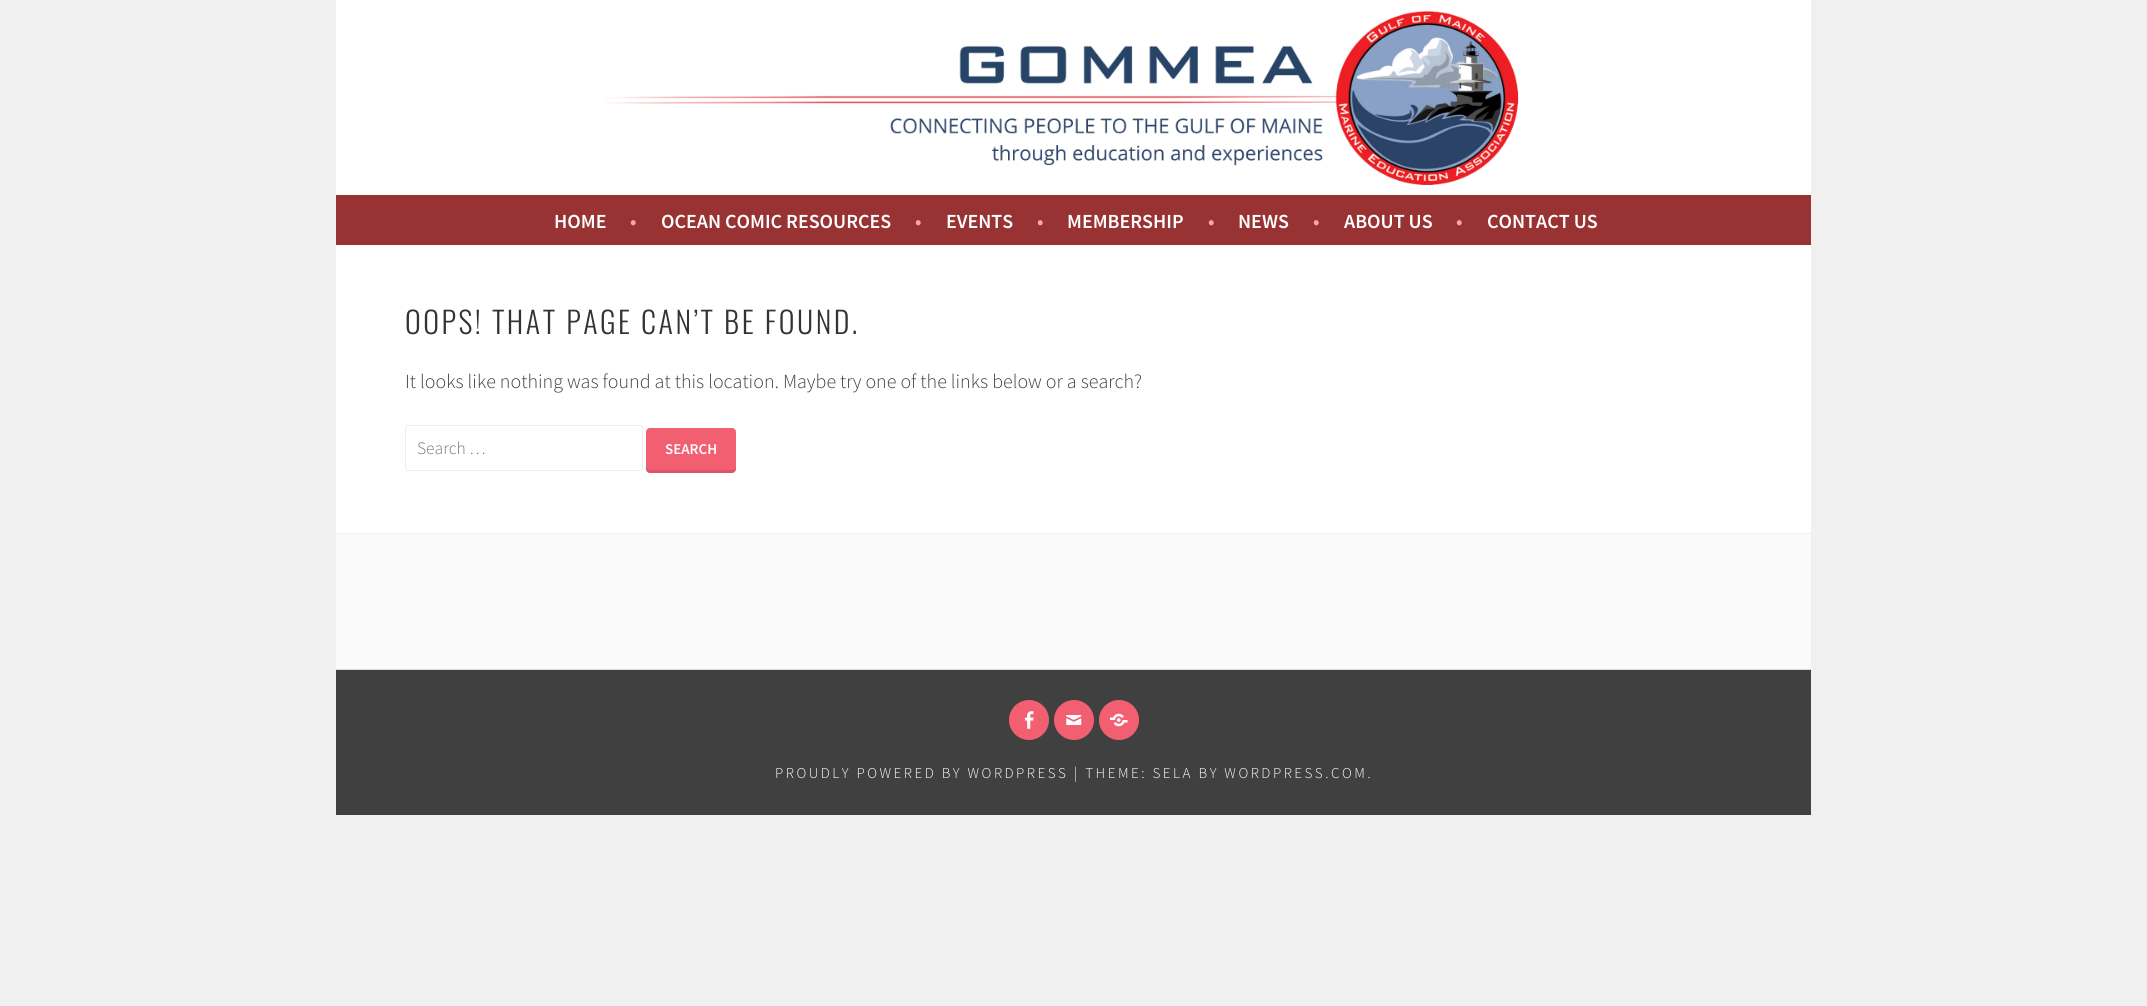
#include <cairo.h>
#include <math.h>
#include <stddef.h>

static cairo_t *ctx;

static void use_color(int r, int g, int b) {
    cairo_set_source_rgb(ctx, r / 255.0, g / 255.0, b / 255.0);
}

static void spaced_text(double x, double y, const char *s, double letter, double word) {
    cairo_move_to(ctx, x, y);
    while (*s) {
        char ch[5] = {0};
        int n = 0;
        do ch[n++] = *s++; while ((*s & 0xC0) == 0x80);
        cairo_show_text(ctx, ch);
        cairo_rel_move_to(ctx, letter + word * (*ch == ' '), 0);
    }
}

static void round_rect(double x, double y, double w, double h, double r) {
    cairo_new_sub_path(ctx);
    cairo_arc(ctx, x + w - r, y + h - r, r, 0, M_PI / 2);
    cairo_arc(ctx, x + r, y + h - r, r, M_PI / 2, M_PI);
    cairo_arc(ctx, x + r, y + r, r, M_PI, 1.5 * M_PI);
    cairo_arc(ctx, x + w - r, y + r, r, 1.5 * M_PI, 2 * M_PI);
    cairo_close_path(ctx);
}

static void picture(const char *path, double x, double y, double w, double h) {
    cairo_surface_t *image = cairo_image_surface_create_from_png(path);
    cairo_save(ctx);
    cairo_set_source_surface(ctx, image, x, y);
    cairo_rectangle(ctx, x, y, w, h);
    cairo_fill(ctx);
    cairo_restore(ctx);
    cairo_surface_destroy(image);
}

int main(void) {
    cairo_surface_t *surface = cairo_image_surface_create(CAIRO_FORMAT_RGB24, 2147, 1006);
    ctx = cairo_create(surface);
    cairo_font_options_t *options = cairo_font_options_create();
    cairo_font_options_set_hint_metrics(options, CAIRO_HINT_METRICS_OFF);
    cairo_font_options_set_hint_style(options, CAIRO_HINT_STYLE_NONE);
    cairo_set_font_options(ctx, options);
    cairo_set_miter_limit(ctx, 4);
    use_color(240, 240, 240);
    cairo_paint(ctx);
    use_color(255, 255, 255);
    cairo_rectangle(ctx, 336, 0, 1475, 195);
    cairo_fill(ctx);
    picture("img1.png", 606, 10, 913, 175);
    use_color(153, 51, 51);
    cairo_rectangle(ctx, 336, 195, 1475, 50);
    cairo_fill(ctx);
    cairo_select_font_face(ctx, "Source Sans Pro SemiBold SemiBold", CAIRO_FONT_SLANT_NORMAL, CAIRO_FONT_WEIGHT_NORMAL);
    cairo_set_font_size(ctx, 20);
    use_color(255, 255, 255);
    cairo_move_to(ctx, 554, 228);
    cairo_show_text(ctx, "HOME");
    use_color(255, 164, 173);
    cairo_move_to(ctx, 630, 228);
    cairo_show_text(ctx, "•");
    use_color(255, 255, 255);
    cairo_move_to(ctx, 661, 228);
    cairo_show_text(ctx, "OCEAN COMIC RESOURCES");
    use_color(255, 164, 173);
    cairo_move_to(ctx, 915, 228);
    cairo_show_text(ctx, "•");
    use_color(255, 255, 255);
    cairo_move_to(ctx, 946, 228);
    cairo_show_text(ctx, "EVENTS");
    use_color(255, 164, 173);
    cairo_move_to(ctx, 1037, 228);
    cairo_show_text(ctx, "•");
    use_color(255, 255, 255);
    cairo_move_to(ctx, 1067, 228);
    cairo_show_text(ctx, "MEMBERSHIP");
    use_color(255, 164, 173);
    cairo_move_to(ctx, 1208, 228);
    cairo_show_text(ctx, "•");
    use_color(255, 255, 255);
    cairo_move_to(ctx, 1238, 228);
    cairo_show_text(ctx, "NEWS");
    use_color(255, 164, 173);
    cairo_move_to(ctx, 1313, 228);
    cairo_show_text(ctx, "•");
    use_color(255, 255, 255);
    cairo_move_to(ctx, 1344, 228);
    cairo_show_text(ctx, "ABOUT US");
    use_color(255, 164, 173);
    cairo_move_to(ctx, 1456, 228);
    cairo_show_text(ctx, "•");
    use_color(255, 255, 255);
    cairo_move_to(ctx, 1487, 228);
    cairo_show_text(ctx, "CONTACT US");
    cairo_rectangle(ctx, 336, 245, 1475, 288);
    cairo_fill(ctx);
    cairo_select_font_face(ctx, "Oswald Light", CAIRO_FONT_SLANT_NORMAL, CAIRO_FONT_WEIGHT_NORMAL);
    cairo_set_font_size(ctx, 30);
    use_color(51, 51, 51);
    spaced_text(405, 334, "OOPS! THAT PAGE CAN’T BE FOUND.", 2.5, 0);
    cairo_select_font_face(ctx, "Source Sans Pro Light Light", CAIRO_FONT_SLANT_NORMAL, CAIRO_FONT_WEIGHT_NORMAL);
    cairo_set_font_size(ctx, 20);
    use_color(64, 64, 64);
    cairo_move_to(ctx, 405, 388);
    cairo_show_text(ctx, "It looks like nothing was found at this location. Maybe try one of the links below or a search?");
    round_rect(405.5, 425.5, 237, 45, 2);
    use_color(238, 238, 238);
    cairo_set_line_width(ctx, 1);
    cairo_stroke(ctx);
    cairo_set_font_size(ctx, 17.5);
    use_color(117, 117, 117);
    cairo_move_to(ctx, 417, 454);
    cairo_show_text(ctx, "Search …");
    use_color(242, 95, 112);
    round_rect(646, 428, 90, 45, 4);
    cairo_fill(ctx);
    cairo_set_source_rgba(ctx, 0, 0, 0, 0.1);
    cairo_new_path(ctx);
    cairo_move_to(ctx, 646, 466);
    cairo_line_to(ctx, 646, 469);
    cairo_curve_to(ctx, 646, 471, 648, 473, 650, 473);
    cairo_line_to(ctx, 732, 473);
    cairo_curve_to(ctx, 734, 473, 736, 471, 736, 469);
    cairo_line_to(ctx, 736, 466);
    cairo_curve_to(ctx, 736, 468, 735, 470, 732, 470);
    cairo_line_to(ctx, 650, 470);
    cairo_curve_to(ctx, 648, 470, 646, 468, 646, 466);
    cairo_close_path(ctx);
    cairo_fill(ctx);
    cairo_select_font_face(ctx, "Source Sans Pro SemiBold SemiBold", CAIRO_FONT_SLANT_NORMAL, CAIRO_FONT_WEIGHT_NORMAL);
    cairo_set_font_size(ctx, 15);
    use_color(255, 255, 255);
    cairo_move_to(ctx, 665, 454);
    cairo_show_text(ctx, "SEARCH");
    use_color(250, 250, 250);
    cairo_rectangle(ctx, 336, 534, 1475, 135);
    cairo_fill(ctx);
    use_color(64, 64, 64);
    cairo_rectangle(ctx, 336, 670, 1475, 145);
    cairo_fill(ctx);
    use_color(217, 217, 217);
    cairo_rectangle(ctx, 336, 669, 1475, 1);
    cairo_fill(ctx);
    use_color(242, 95, 112);
    cairo_arc(ctx, 1029, 720, 20, 0, 2 * M_PI);
    cairo_fill(ctx);
    picture("img2.png", 1025, 711, 9, 18);
    cairo_arc(ctx, 1074, 720, 20, 0, 2 * M_PI);
    cairo_fill(ctx);
    picture("img3.png", 1066, 715, 16, 10);
    cairo_arc(ctx, 1119, 720, 20, 0, 2 * M_PI);
    cairo_fill(ctx);
    picture("img4.png", 1110, 713, 18, 14);
    cairo_select_font_face(ctx, "Source Sans Pro Light Light", CAIRO_FONT_SLANT_NORMAL, CAIRO_FONT_WEIGHT_NORMAL);
    use_color(255, 255, 255);
    spaced_text(775, 778, "PROUDLY POWERED BY WORDPRESS | THEME: SELA BY WORDPRESS.COM.", 2.5, 0);
    cairo_surface_write_to_png(surface, "result.png");
    cairo_font_options_destroy(options);
    cairo_destroy(ctx);
    cairo_surface_destroy(surface);
    return 0;
}
